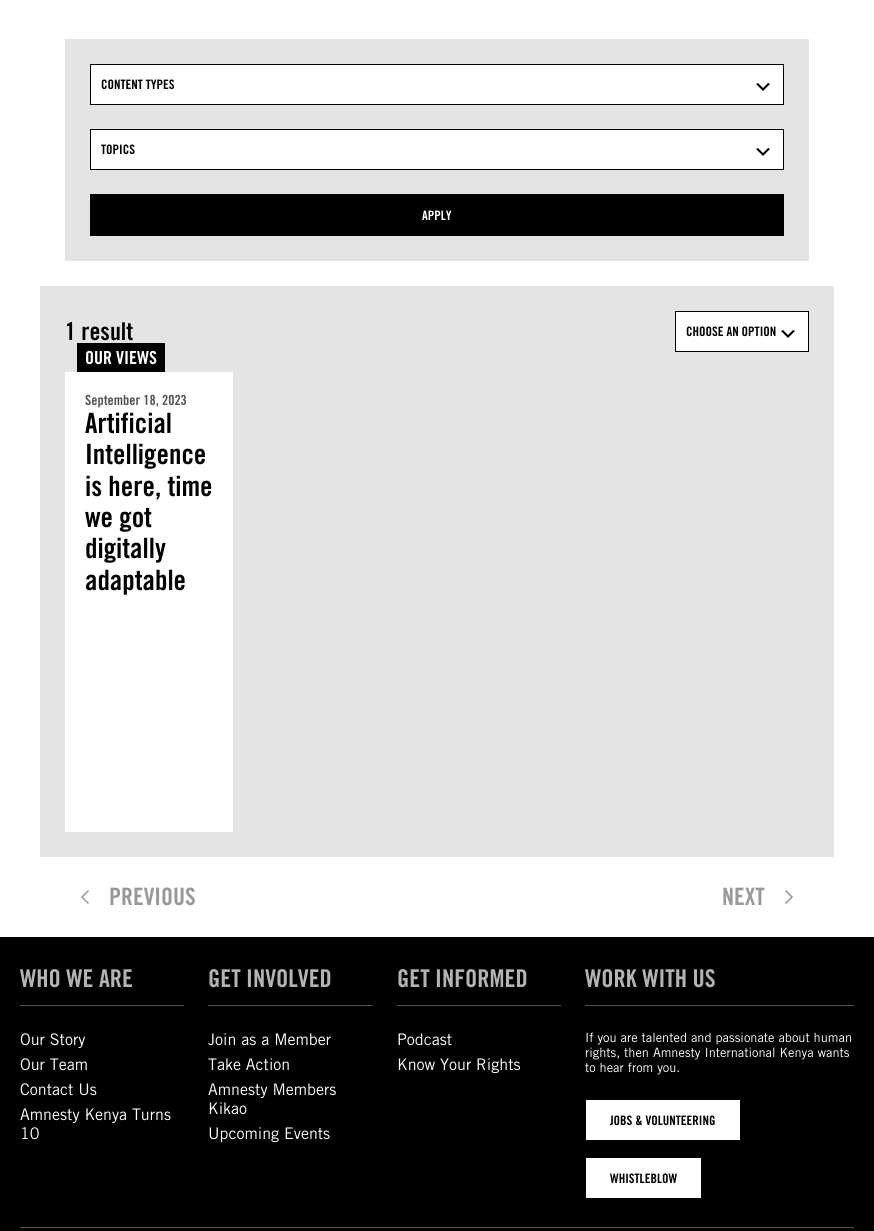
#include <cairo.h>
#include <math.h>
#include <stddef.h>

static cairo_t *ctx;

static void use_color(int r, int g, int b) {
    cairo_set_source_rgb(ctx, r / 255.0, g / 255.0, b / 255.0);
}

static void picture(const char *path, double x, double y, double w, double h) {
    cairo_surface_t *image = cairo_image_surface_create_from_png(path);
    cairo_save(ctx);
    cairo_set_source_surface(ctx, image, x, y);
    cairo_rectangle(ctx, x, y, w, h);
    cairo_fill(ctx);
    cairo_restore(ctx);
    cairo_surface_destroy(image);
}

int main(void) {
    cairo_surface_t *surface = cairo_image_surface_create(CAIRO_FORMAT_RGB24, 874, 1231);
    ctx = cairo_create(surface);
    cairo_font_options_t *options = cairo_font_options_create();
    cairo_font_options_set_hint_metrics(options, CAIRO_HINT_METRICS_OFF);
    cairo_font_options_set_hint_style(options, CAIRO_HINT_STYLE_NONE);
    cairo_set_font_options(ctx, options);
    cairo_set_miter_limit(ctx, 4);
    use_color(255, 255, 255);
    cairo_paint(ctx);
    use_color(228, 228, 228);
    cairo_rectangle(ctx, 65, 39, 744, 222);
    cairo_fill(ctx);
    use_color(255, 255, 255);
    cairo_rectangle(ctx, 90.5, 64.5, 693, 40);
    cairo_fill_preserve(ctx);
    use_color(0, 0, 0);
    cairo_set_line_width(ctx, 1);
    cairo_stroke(ctx);
    cairo_select_font_face(ctx, "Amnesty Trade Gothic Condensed", CAIRO_FONT_SLANT_NORMAL, CAIRO_FONT_WEIGHT_BOLD);
    cairo_set_font_size(ctx, 13);
    cairo_move_to(ctx, 101, 89);
    cairo_show_text(ctx, "CONTENT TYPES");
    picture("img1.png", 756, 83, 14, 8);
    use_color(255, 255, 255);
    cairo_rectangle(ctx, 90.5, 129.5, 693, 40);
    cairo_fill_preserve(ctx);
    use_color(0, 0, 0);
    cairo_stroke(ctx);
    cairo_move_to(ctx, 101, 154);
    cairo_show_text(ctx, "TOPICS");
    picture("img1.png", 756, 148, 14, 8);
    cairo_rectangle(ctx, 90, 194, 694, 42);
    cairo_fill(ctx);
    use_color(255, 255, 255);
    cairo_move_to(ctx, 422, 220);
    cairo_show_text(ctx, "APPLY");
    use_color(228, 228, 228);
    cairo_rectangle(ctx, 40, 286, 794, 571);
    cairo_fill(ctx);
    cairo_set_font_size(ctx, 24.5);
    use_color(0, 0, 0);
    cairo_move_to(ctx, 65, 340);
    cairo_show_text(ctx, "1 result");
    use_color(255, 255, 255);
    cairo_rectangle(ctx, 675.5, 311.5, 133, 40);
    cairo_fill_preserve(ctx);
    use_color(0, 0, 0);
    cairo_stroke(ctx);
    cairo_set_font_size(ctx, 13);
    cairo_move_to(ctx, 686, 336);
    cairo_show_text(ctx, "CHOOSE AN OPTION");
    picture("img1.png", 781, 330, 14, 8);
    use_color(255, 255, 255);
    cairo_rectangle(ctx, 65, 372, 168, 460);
    cairo_fill(ctx);
    use_color(0, 0, 0);
    cairo_rectangle(ctx, 77, 343, 88, 29);
    cairo_fill(ctx);
    cairo_set_font_size(ctx, 18);
    use_color(255, 255, 255);
    cairo_move_to(ctx, 85, 364);
    cairo_show_text(ctx, "OUR VIEWS");
    cairo_set_font_size(ctx, 14);
    use_color(82, 82, 82);
    cairo_move_to(ctx, 85, 405);
    cairo_show_text(ctx, "September 18, 2023");
    cairo_set_font_size(ctx, 28);
    use_color(0, 0, 0);
    cairo_move_to(ctx, 85, 433);
    cairo_show_text(ctx, "Artificial");
    cairo_move_to(ctx, 85, 464);
    cairo_show_text(ctx, "Intelligence");
    cairo_move_to(ctx, 85, 496);
    cairo_show_text(ctx, "is here, time");
    cairo_move_to(ctx, 85, 527);
    cairo_show_text(ctx, "we got");
    cairo_move_to(ctx, 85, 558);
    cairo_show_text(ctx, "digitally");
    cairo_move_to(ctx, 85, 590);
    cairo_show_text(ctx, "adaptable");
    picture("img2.png", 81, 890, 8, 14);
    cairo_set_font_size(ctx, 24);
    use_color(153, 153, 153);
    cairo_move_to(ctx, 109, 905);
    cairo_show_text(ctx, "PREVIOUS");
    cairo_move_to(ctx, 722, 905);
    cairo_show_text(ctx, "NEXT");
    picture("img3.png", 785, 890, 8, 14);
    use_color(0, 0, 0);
    cairo_rectangle(ctx, 0, 937, 874, 294);
    cairo_fill(ctx);
    use_color(82, 82, 82);
    cairo_rectangle(ctx, 20, 1005, 164, 1);
    cairo_fill(ctx);
    cairo_set_font_size(ctx, 24.5);
    use_color(179, 179, 179);
    cairo_move_to(ctx, 20, 987);
    cairo_show_text(ctx, "WHO WE ARE");
    cairo_select_font_face(ctx, "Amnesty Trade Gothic", CAIRO_FONT_SLANT_NORMAL, CAIRO_FONT_WEIGHT_NORMAL);
    cairo_set_font_size(ctx, 16);
    use_color(255, 255, 255);
    cairo_move_to(ctx, 20, 1045);
    cairo_show_text(ctx, "Our Story");
    cairo_move_to(ctx, 20, 1070);
    cairo_show_text(ctx, "Our Team");
    cairo_move_to(ctx, 20, 1095);
    cairo_show_text(ctx, "Contact Us");
    cairo_move_to(ctx, 20, 1120);
    cairo_show_text(ctx, "Amnesty Kenya Turns");
    cairo_move_to(ctx, 20, 1139);
    cairo_show_text(ctx, "10");
    use_color(82, 82, 82);
    cairo_rectangle(ctx, 208, 1005, 165, 1);
    cairo_fill(ctx);
    cairo_select_font_face(ctx, "Amnesty Trade Gothic Condensed", CAIRO_FONT_SLANT_NORMAL, CAIRO_FONT_WEIGHT_BOLD);
    cairo_set_font_size(ctx, 24.5);
    use_color(179, 179, 179);
    cairo_move_to(ctx, 208, 987);
    cairo_show_text(ctx, "GET INVOLVED");
    cairo_select_font_face(ctx, "Amnesty Trade Gothic", CAIRO_FONT_SLANT_NORMAL, CAIRO_FONT_WEIGHT_NORMAL);
    cairo_set_font_size(ctx, 16);
    use_color(255, 255, 255);
    cairo_move_to(ctx, 208, 1045);
    cairo_show_text(ctx, "Join as a Member");
    cairo_move_to(ctx, 208, 1070);
    cairo_show_text(ctx, "Take Action");
    cairo_move_to(ctx, 208, 1095);
    cairo_show_text(ctx, "Amnesty Members");
    cairo_move_to(ctx, 208, 1114);
    cairo_show_text(ctx, "Kikao");
    cairo_move_to(ctx, 208, 1139);
    cairo_show_text(ctx, "Upcoming Events");
    use_color(82, 82, 82);
    cairo_rectangle(ctx, 397, 1005, 164, 1);
    cairo_fill(ctx);
    cairo_select_font_face(ctx, "Amnesty Trade Gothic Condensed", CAIRO_FONT_SLANT_NORMAL, CAIRO_FONT_WEIGHT_BOLD);
    cairo_set_font_size(ctx, 24.5);
    use_color(179, 179, 179);
    cairo_move_to(ctx, 397, 987);
    cairo_show_text(ctx, "GET INFORMED");
    cairo_select_font_face(ctx, "Amnesty Trade Gothic", CAIRO_FONT_SLANT_NORMAL, CAIRO_FONT_WEIGHT_NORMAL);
    cairo_set_font_size(ctx, 16);
    use_color(255, 255, 255);
    cairo_move_to(ctx, 397, 1045);
    cairo_show_text(ctx, "Podcast");
    cairo_move_to(ctx, 397, 1070);
    cairo_show_text(ctx, "Know Your Rights");
    use_color(82, 82, 82);
    cairo_rectangle(ctx, 585, 1005, 269, 1);
    cairo_fill(ctx);
    cairo_select_font_face(ctx, "Amnesty Trade Gothic Condensed", CAIRO_FONT_SLANT_NORMAL, CAIRO_FONT_WEIGHT_BOLD);
    cairo_set_font_size(ctx, 24.5);
    use_color(179, 179, 179);
    cairo_move_to(ctx, 585, 987);
    cairo_show_text(ctx, "WORK WITH US");
    cairo_select_font_face(ctx, "Amnesty Trade Gothic", CAIRO_FONT_SLANT_NORMAL, CAIRO_FONT_WEIGHT_NORMAL);
    cairo_set_font_size(ctx, 12.8);
    use_color(255, 255, 255);
    cairo_move_to(ctx, 585, 1042);
    cairo_show_text(ctx, "If you are talented and passionate about human");
    cairo_move_to(ctx, 585, 1057);
    cairo_show_text(ctx, "rights, then Amnesty International Kenya wants");
    cairo_move_to(ctx, 585, 1072);
    cairo_show_text(ctx, "to hear from you.");
    cairo_rectangle(ctx, 586, 1100, 154, 40);
    cairo_fill(ctx);
    cairo_select_font_face(ctx, "Amnesty Trade Gothic Condensed", CAIRO_FONT_SLANT_NORMAL, CAIRO_FONT_WEIGHT_BOLD);
    cairo_set_font_size(ctx, 13);
    use_color(0, 0, 0);
    cairo_move_to(ctx, 610, 1125);
    cairo_show_text(ctx, "JOBS & VOLUNTEERING");
    use_color(255, 255, 255);
    cairo_rectangle(ctx, 586, 1158, 115, 40);
    cairo_fill(ctx);
    use_color(0, 0, 0);
    cairo_move_to(ctx, 610, 1183);
    cairo_show_text(ctx, "WHISTLEBLOW");
    use_color(82, 82, 82);
    cairo_rectangle(ctx, 20, 1227, 834, 1);
    cairo_fill(ctx);
    cairo_surface_write_to_png(surface, "result.png");
    cairo_font_options_destroy(options);
    cairo_destroy(ctx);
    cairo_surface_destroy(surface);
    return 0;
}
